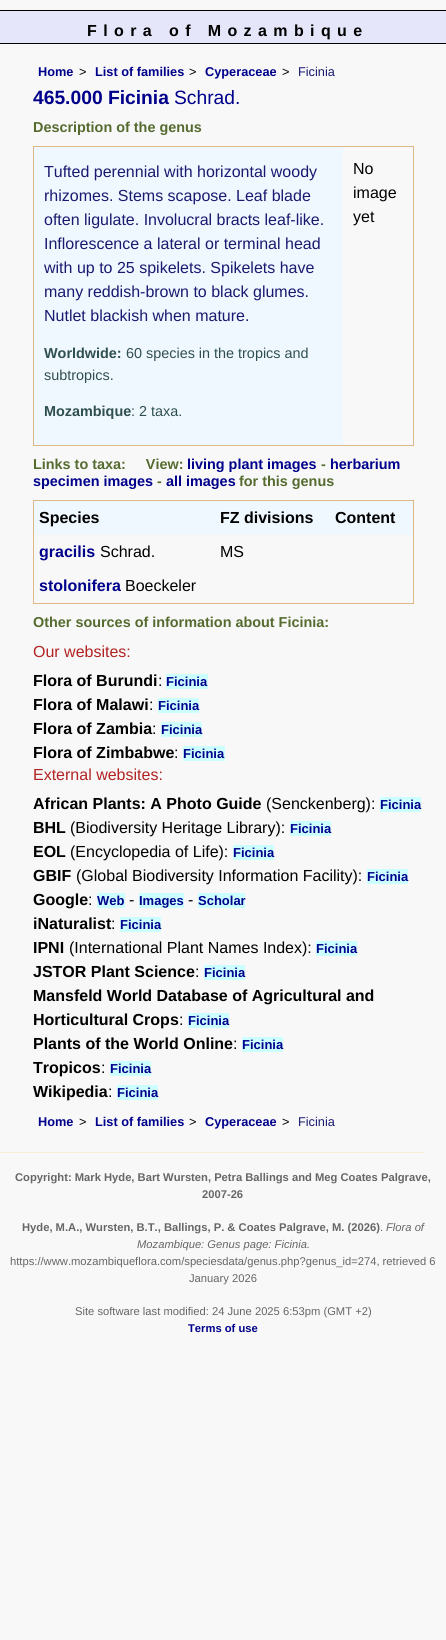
#include <cairo.h>
#include <math.h>
#include <stddef.h>

static cairo_t *ctx;

static void use_color(int r, int g, int b) {
    cairo_set_source_rgb(ctx, r / 255.0, g / 255.0, b / 255.0);
}

static void spaced_text(double x, double y, const char *s, double letter, double word) {
    cairo_move_to(ctx, x, y);
    while (*s) {
        char ch[5] = {0};
        int n = 0;
        do ch[n++] = *s++; while ((*s & 0xC0) == 0x80);
        cairo_show_text(ctx, ch);
        cairo_rel_move_to(ctx, letter + word * (*ch == ' '), 0);
    }
}

int main(void) {
    cairo_surface_t *surface = cairo_image_surface_create(CAIRO_FORMAT_RGB24, 446, 1640);
    ctx = cairo_create(surface);
    cairo_font_options_t *options = cairo_font_options_create();
    cairo_font_options_set_hint_metrics(options, CAIRO_HINT_METRICS_OFF);
    cairo_font_options_set_hint_style(options, CAIRO_HINT_STYLE_NONE);
    cairo_set_font_options(ctx, options);
    cairo_set_miter_limit(ctx, 4);
    use_color(248, 248, 248);
    cairo_paint(ctx);
    use_color(230, 230, 250);
    cairo_rectangle(ctx, 0, 11, 446, 32);
    cairo_fill(ctx);
    use_color(0, 0, 0);
    cairo_rectangle(ctx, 0, 10, 446, 1);
    cairo_fill(ctx);
    cairo_rectangle(ctx, 0, 43, 446, 1);
    cairo_fill(ctx);
    cairo_select_font_face(ctx, "Liberation Sans", CAIRO_FONT_SLANT_NORMAL, CAIRO_FONT_WEIGHT_BOLD);
    cairo_set_font_size(ctx, 16);
    spaced_text(87, 36, "Flora of Mozambique", 6.4, 0);
    cairo_set_font_size(ctx, 12.75);
    use_color(0, 0, 139);
    cairo_move_to(ctx, 38, 76);
    cairo_show_text(ctx, "Home");
    cairo_select_font_face(ctx, "Liberation Sans", CAIRO_FONT_SLANT_NORMAL, CAIRO_FONT_WEIGHT_NORMAL);
    use_color(0, 0, 0);
    cairo_move_to(ctx, 79, 76);
    cairo_show_text(ctx, ">");
    cairo_select_font_face(ctx, "Liberation Sans", CAIRO_FONT_SLANT_NORMAL, CAIRO_FONT_WEIGHT_BOLD);
    use_color(0, 0, 139);
    cairo_move_to(ctx, 95, 76);
    cairo_show_text(ctx, "List of families");
    cairo_select_font_face(ctx, "Liberation Sans", CAIRO_FONT_SLANT_NORMAL, CAIRO_FONT_WEIGHT_NORMAL);
    use_color(0, 0, 0);
    cairo_move_to(ctx, 189, 76);
    cairo_show_text(ctx, ">");
    cairo_select_font_face(ctx, "Liberation Sans", CAIRO_FONT_SLANT_NORMAL, CAIRO_FONT_WEIGHT_BOLD);
    use_color(0, 0, 139);
    cairo_move_to(ctx, 205, 76);
    cairo_show_text(ctx, "Cyperaceae");
    cairo_select_font_face(ctx, "Liberation Sans", CAIRO_FONT_SLANT_NORMAL, CAIRO_FONT_WEIGHT_NORMAL);
    use_color(0, 0, 0);
    cairo_move_to(ctx, 282, 76);
    cairo_show_text(ctx, ">");
    use_color(25, 25, 112);
    cairo_move_to(ctx, 298, 76);
    cairo_show_text(ctx, "Ficinia");
    cairo_select_font_face(ctx, "Liberation Sans", CAIRO_FONT_SLANT_NORMAL, CAIRO_FONT_WEIGHT_BOLD);
    cairo_set_font_size(ctx, 19.25);
    use_color(0, 0, 139);
    cairo_move_to(ctx, 33, 104);
    cairo_show_text(ctx, "465.000 Ficinia");
    cairo_select_font_face(ctx, "Liberation Sans", CAIRO_FONT_SLANT_NORMAL, CAIRO_FONT_WEIGHT_NORMAL);
    cairo_move_to(ctx, 174, 104);
    cairo_show_text(ctx, "Schrad.");
    cairo_select_font_face(ctx, "Liberation Sans", CAIRO_FONT_SLANT_NORMAL, CAIRO_FONT_WEIGHT_BOLD);
    cairo_set_font_size(ctx, 14.4);
    use_color(85, 107, 47);
    cairo_move_to(ctx, 33, 132);
    cairo_show_text(ctx, "Description of the genus");
    use_color(222, 184, 135);
    cairo_rectangle(ctx, 33, 146, 381, 1);
    cairo_fill(ctx);
    cairo_rectangle(ctx, 413, 146, 1, 300);
    cairo_fill(ctx);
    cairo_rectangle(ctx, 33, 445, 381, 1);
    cairo_fill(ctx);
    cairo_rectangle(ctx, 33, 146, 1, 300);
    cairo_fill(ctx);
    use_color(240, 248, 255);
    cairo_rectangle(ctx, 34, 147, 309, 298);
    cairo_fill(ctx);
    cairo_select_font_face(ctx, "Liberation Sans", CAIRO_FONT_SLANT_NORMAL, CAIRO_FONT_WEIGHT_NORMAL);
    cairo_set_font_size(ctx, 16);
    use_color(25, 25, 112);
    cairo_move_to(ctx, 44, 177);
    cairo_show_text(ctx, "Tufted perennial with horizontal woody");
    cairo_move_to(ctx, 44, 201);
    cairo_show_text(ctx, "rhizomes. Stems scapose. Leaf blade");
    cairo_move_to(ctx, 44, 225);
    cairo_show_text(ctx, "often ligulate. Involucral bracts leaf-like.");
    cairo_move_to(ctx, 44, 249);
    cairo_show_text(ctx, "Inflorescence a lateral or terminal head");
    cairo_move_to(ctx, 44, 273);
    cairo_show_text(ctx, "with up to 25 spikelets. Spikelets have");
    cairo_move_to(ctx, 44, 297);
    cairo_show_text(ctx, "many reddish-brown to black glumes.");
    cairo_move_to(ctx, 44, 321);
    cairo_show_text(ctx, "Nutlet blackish when mature.");
    cairo_select_font_face(ctx, "Liberation Sans", CAIRO_FONT_SLANT_NORMAL, CAIRO_FONT_WEIGHT_BOLD);
    cairo_set_font_size(ctx, 14.4);
    use_color(47, 79, 79);
    cairo_move_to(ctx, 44, 358);
    cairo_show_text(ctx, "Worldwide:");
    cairo_select_font_face(ctx, "Liberation Sans", CAIRO_FONT_SLANT_NORMAL, CAIRO_FONT_WEIGHT_NORMAL);
    cairo_move_to(ctx, 126, 358);
    cairo_show_text(ctx, "60 species in the tropics and");
    cairo_move_to(ctx, 44, 380);
    cairo_show_text(ctx, "subtropics.");
    cairo_select_font_face(ctx, "Liberation Sans", CAIRO_FONT_SLANT_NORMAL, CAIRO_FONT_WEIGHT_BOLD);
    cairo_move_to(ctx, 44, 416);
    cairo_show_text(ctx, "Mozambique");
    cairo_select_font_face(ctx, "Liberation Sans", CAIRO_FONT_SLANT_NORMAL, CAIRO_FONT_WEIGHT_NORMAL);
    cairo_move_to(ctx, 131, 416);
    cairo_show_text(ctx, ": 2 taxa.");
    cairo_set_font_size(ctx, 16);
    use_color(0, 0, 0);
    cairo_move_to(ctx, 353, 174);
    cairo_show_text(ctx, "No");
    cairo_move_to(ctx, 353, 198);
    cairo_show_text(ctx, "image");
    cairo_move_to(ctx, 353, 222);
    cairo_show_text(ctx, "yet");
    cairo_select_font_face(ctx, "Liberation Sans", CAIRO_FONT_SLANT_NORMAL, CAIRO_FONT_WEIGHT_BOLD);
    cairo_set_font_size(ctx, 14.4);
    use_color(85, 107, 47);
    cairo_move_to(ctx, 33, 469);
    cairo_show_text(ctx, "Links to taxa:     View:");
    use_color(0, 0, 139);
    cairo_move_to(ctx, 187, 469);
    cairo_show_text(ctx, "living plant images");
    use_color(85, 107, 47);
    cairo_move_to(ctx, 321, 469);
    cairo_show_text(ctx, "-");
    use_color(0, 0, 139);
    cairo_move_to(ctx, 330, 469);
    cairo_show_text(ctx, "herbarium");
    cairo_move_to(ctx, 33, 486);
    cairo_show_text(ctx, "specimen images");
    use_color(85, 107, 47);
    cairo_move_to(ctx, 157, 486);
    cairo_show_text(ctx, "-");
    use_color(0, 0, 139);
    cairo_move_to(ctx, 166, 486);
    cairo_show_text(ctx, "all images");
    use_color(85, 107, 47);
    cairo_move_to(ctx, 239, 486);
    cairo_show_text(ctx, "for this genus");
    use_color(222, 184, 135);
    cairo_rectangle(ctx, 33, 500, 381, 1);
    cairo_fill(ctx);
    cairo_rectangle(ctx, 413, 500, 1, 104);
    cairo_fill(ctx);
    cairo_rectangle(ctx, 33, 603, 381, 1);
    cairo_fill(ctx);
    cairo_rectangle(ctx, 33, 500, 1, 104);
    cairo_fill(ctx);
    use_color(240, 248, 255);
    cairo_rectangle(ctx, 34, 501, 379, 34);
    cairo_fill(ctx);
    cairo_set_font_size(ctx, 16);
    use_color(0, 0, 0);
    cairo_move_to(ctx, 39, 523);
    cairo_show_text(ctx, "Species");
    cairo_move_to(ctx, 220, 523);
    cairo_show_text(ctx, "FZ divisions");
    cairo_move_to(ctx, 335, 523);
    cairo_show_text(ctx, "Content");
    use_color(0, 0, 139);
    cairo_move_to(ctx, 39, 557);
    cairo_show_text(ctx, "gracilis");
    cairo_select_font_face(ctx, "Liberation Sans", CAIRO_FONT_SLANT_NORMAL, CAIRO_FONT_WEIGHT_NORMAL);
    use_color(0, 0, 0);
    cairo_move_to(ctx, 100, 557);
    cairo_show_text(ctx, "Schrad.");
    cairo_move_to(ctx, 220, 557);
    cairo_show_text(ctx, "MS");
    cairo_select_font_face(ctx, "Liberation Sans", CAIRO_FONT_SLANT_NORMAL, CAIRO_FONT_WEIGHT_BOLD);
    use_color(0, 0, 139);
    cairo_move_to(ctx, 39, 591);
    cairo_show_text(ctx, "stolonifera");
    cairo_select_font_face(ctx, "Liberation Sans", CAIRO_FONT_SLANT_NORMAL, CAIRO_FONT_WEIGHT_NORMAL);
    use_color(0, 0, 0);
    cairo_move_to(ctx, 125, 591);
    cairo_show_text(ctx, "Boeckeler");
    cairo_select_font_face(ctx, "Liberation Sans", CAIRO_FONT_SLANT_NORMAL, CAIRO_FONT_WEIGHT_BOLD);
    cairo_set_font_size(ctx, 14.4);
    use_color(85, 107, 47);
    cairo_move_to(ctx, 33, 627);
    cairo_show_text(ctx, "Other sources of information about Ficinia:");
    cairo_select_font_face(ctx, "Liberation Sans", CAIRO_FONT_SLANT_NORMAL, CAIRO_FONT_WEIGHT_NORMAL);
    cairo_set_font_size(ctx, 16);
    use_color(178, 34, 34);
    cairo_move_to(ctx, 33, 657);
    cairo_show_text(ctx, "Our websites:");
    cairo_select_font_face(ctx, "Liberation Sans", CAIRO_FONT_SLANT_NORMAL, CAIRO_FONT_WEIGHT_BOLD);
    use_color(0, 0, 0);
    cairo_move_to(ctx, 33, 686);
    cairo_show_text(ctx, "Flora of Burundi");
    cairo_select_font_face(ctx, "Liberation Sans", CAIRO_FONT_SLANT_NORMAL, CAIRO_FONT_WEIGHT_NORMAL);
    cairo_move_to(ctx, 158, 686);
    cairo_show_text(ctx, ":");
    use_color(204, 255, 255);
    cairo_rectangle(ctx, 166, 674, 42, 15);
    cairo_fill(ctx);
    cairo_select_font_face(ctx, "Liberation Sans", CAIRO_FONT_SLANT_NORMAL, CAIRO_FONT_WEIGHT_BOLD);
    cairo_set_font_size(ctx, 13);
    use_color(0, 0, 139);
    cairo_move_to(ctx, 166, 686);
    cairo_show_text(ctx, "Ficinia");
    cairo_set_font_size(ctx, 16);
    use_color(0, 0, 0);
    cairo_move_to(ctx, 33, 710);
    cairo_show_text(ctx, "Flora of Malawi");
    cairo_select_font_face(ctx, "Liberation Sans", CAIRO_FONT_SLANT_NORMAL, CAIRO_FONT_WEIGHT_NORMAL);
    cairo_move_to(ctx, 149, 710);
    cairo_show_text(ctx, ":");
    use_color(204, 255, 255);
    cairo_rectangle(ctx, 158, 698, 41, 15);
    cairo_fill(ctx);
    cairo_select_font_face(ctx, "Liberation Sans", CAIRO_FONT_SLANT_NORMAL, CAIRO_FONT_WEIGHT_BOLD);
    cairo_set_font_size(ctx, 13);
    use_color(0, 0, 139);
    cairo_move_to(ctx, 158, 710);
    cairo_show_text(ctx, "Ficinia");
    cairo_set_font_size(ctx, 16);
    use_color(0, 0, 0);
    cairo_move_to(ctx, 33, 734);
    cairo_show_text(ctx, "Flora of Zambia");
    cairo_select_font_face(ctx, "Liberation Sans", CAIRO_FONT_SLANT_NORMAL, CAIRO_FONT_WEIGHT_NORMAL);
    cairo_move_to(ctx, 152, 734);
    cairo_show_text(ctx, ":");
    use_color(204, 255, 255);
    cairo_rectangle(ctx, 161, 722, 41, 15);
    cairo_fill(ctx);
    cairo_select_font_face(ctx, "Liberation Sans", CAIRO_FONT_SLANT_NORMAL, CAIRO_FONT_WEIGHT_BOLD);
    cairo_set_font_size(ctx, 13);
    use_color(0, 0, 139);
    cairo_move_to(ctx, 161, 734);
    cairo_show_text(ctx, "Ficinia");
    cairo_set_font_size(ctx, 16);
    use_color(0, 0, 0);
    cairo_move_to(ctx, 33, 758);
    cairo_show_text(ctx, "Flora of Zimbabwe");
    cairo_select_font_face(ctx, "Liberation Sans", CAIRO_FONT_SLANT_NORMAL, CAIRO_FONT_WEIGHT_NORMAL);
    cairo_move_to(ctx, 174, 758);
    cairo_show_text(ctx, ":");
    use_color(204, 255, 255);
    cairo_rectangle(ctx, 183, 746, 42, 15);
    cairo_fill(ctx);
    cairo_select_font_face(ctx, "Liberation Sans", CAIRO_FONT_SLANT_NORMAL, CAIRO_FONT_WEIGHT_BOLD);
    cairo_set_font_size(ctx, 13);
    use_color(0, 0, 139);
    cairo_move_to(ctx, 183, 758);
    cairo_show_text(ctx, "Ficinia");
    cairo_select_font_face(ctx, "Liberation Sans", CAIRO_FONT_SLANT_NORMAL, CAIRO_FONT_WEIGHT_NORMAL);
    cairo_set_font_size(ctx, 16);
    use_color(178, 34, 34);
    cairo_move_to(ctx, 33, 780);
    cairo_show_text(ctx, "External websites:");
    cairo_select_font_face(ctx, "Liberation Sans", CAIRO_FONT_SLANT_NORMAL, CAIRO_FONT_WEIGHT_BOLD);
    use_color(0, 0, 0);
    cairo_move_to(ctx, 33, 809);
    cairo_show_text(ctx, "African Plants: A Photo Guide");
    cairo_select_font_face(ctx, "Liberation Sans", CAIRO_FONT_SLANT_NORMAL, CAIRO_FONT_WEIGHT_NORMAL);
    cairo_move_to(ctx, 266, 809);
    cairo_show_text(ctx, "(Senckenberg):");
    use_color(204, 255, 255);
    cairo_rectangle(ctx, 380, 797, 41, 15);
    cairo_fill(ctx);
    cairo_select_font_face(ctx, "Liberation Sans", CAIRO_FONT_SLANT_NORMAL, CAIRO_FONT_WEIGHT_BOLD);
    cairo_set_font_size(ctx, 13);
    use_color(0, 0, 139);
    cairo_move_to(ctx, 380, 809);
    cairo_show_text(ctx, "Ficinia");
    cairo_set_font_size(ctx, 16);
    use_color(0, 0, 0);
    cairo_move_to(ctx, 33, 833);
    cairo_show_text(ctx, "BHL");
    cairo_select_font_face(ctx, "Liberation Sans", CAIRO_FONT_SLANT_NORMAL, CAIRO_FONT_WEIGHT_NORMAL);
    cairo_move_to(ctx, 70, 833);
    cairo_show_text(ctx, "(Biodiversity Heritage Library):");
    use_color(204, 255, 255);
    cairo_rectangle(ctx, 290, 821, 41, 15);
    cairo_fill(ctx);
    cairo_select_font_face(ctx, "Liberation Sans", CAIRO_FONT_SLANT_NORMAL, CAIRO_FONT_WEIGHT_BOLD);
    cairo_set_font_size(ctx, 13);
    use_color(0, 0, 139);
    cairo_move_to(ctx, 290, 833);
    cairo_show_text(ctx, "Ficinia");
    cairo_set_font_size(ctx, 16);
    use_color(0, 0, 0);
    cairo_move_to(ctx, 33, 857);
    cairo_show_text(ctx, "EOL");
    cairo_select_font_face(ctx, "Liberation Sans", CAIRO_FONT_SLANT_NORMAL, CAIRO_FONT_WEIGHT_NORMAL);
    cairo_move_to(ctx, 70, 857);
    cairo_show_text(ctx, "(Encyclopedia of Life):");
    use_color(204, 255, 255);
    cairo_rectangle(ctx, 233, 845, 41, 15);
    cairo_fill(ctx);
    cairo_select_font_face(ctx, "Liberation Sans", CAIRO_FONT_SLANT_NORMAL, CAIRO_FONT_WEIGHT_BOLD);
    cairo_set_font_size(ctx, 13);
    use_color(0, 0, 139);
    cairo_move_to(ctx, 233, 857);
    cairo_show_text(ctx, "Ficinia");
    cairo_set_font_size(ctx, 16);
    use_color(0, 0, 0);
    cairo_move_to(ctx, 33, 881);
    cairo_show_text(ctx, "GBIF");
    cairo_select_font_face(ctx, "Liberation Sans", CAIRO_FONT_SLANT_NORMAL, CAIRO_FONT_WEIGHT_NORMAL);
    cairo_move_to(ctx, 76, 881);
    cairo_show_text(ctx, "(Global Biodiversity Information Facility):");
    use_color(204, 255, 255);
    cairo_rectangle(ctx, 367, 869, 41, 15);
    cairo_fill(ctx);
    cairo_select_font_face(ctx, "Liberation Sans", CAIRO_FONT_SLANT_NORMAL, CAIRO_FONT_WEIGHT_BOLD);
    cairo_set_font_size(ctx, 13);
    use_color(0, 0, 139);
    cairo_move_to(ctx, 367, 881);
    cairo_show_text(ctx, "Ficinia");
    cairo_set_font_size(ctx, 16);
    use_color(0, 0, 0);
    cairo_move_to(ctx, 33, 905);
    cairo_show_text(ctx, "Google");
    cairo_select_font_face(ctx, "Liberation Sans", CAIRO_FONT_SLANT_NORMAL, CAIRO_FONT_WEIGHT_NORMAL);
    cairo_move_to(ctx, 88, 905);
    cairo_show_text(ctx, ":");
    use_color(204, 255, 255);
    cairo_rectangle(ctx, 97, 893, 28, 15);
    cairo_fill(ctx);
    cairo_select_font_face(ctx, "Liberation Sans", CAIRO_FONT_SLANT_NORMAL, CAIRO_FONT_WEIGHT_BOLD);
    cairo_set_font_size(ctx, 13);
    use_color(0, 0, 139);
    cairo_move_to(ctx, 97, 905);
    cairo_show_text(ctx, "Web");
    cairo_select_font_face(ctx, "Liberation Sans", CAIRO_FONT_SLANT_NORMAL, CAIRO_FONT_WEIGHT_NORMAL);
    cairo_set_font_size(ctx, 16);
    use_color(0, 0, 0);
    cairo_move_to(ctx, 129, 905);
    cairo_show_text(ctx, "-");
    use_color(204, 255, 255);
    cairo_rectangle(ctx, 139, 893, 45, 15);
    cairo_fill(ctx);
    cairo_select_font_face(ctx, "Liberation Sans", CAIRO_FONT_SLANT_NORMAL, CAIRO_FONT_WEIGHT_BOLD);
    cairo_set_font_size(ctx, 13);
    use_color(0, 0, 139);
    cairo_move_to(ctx, 139, 905);
    cairo_show_text(ctx, "Images");
    cairo_select_font_face(ctx, "Liberation Sans", CAIRO_FONT_SLANT_NORMAL, CAIRO_FONT_WEIGHT_NORMAL);
    cairo_set_font_size(ctx, 16);
    use_color(0, 0, 0);
    cairo_move_to(ctx, 188, 905);
    cairo_show_text(ctx, "-");
    use_color(204, 255, 255);
    cairo_rectangle(ctx, 198, 893, 47, 15);
    cairo_fill(ctx);
    cairo_select_font_face(ctx, "Liberation Sans", CAIRO_FONT_SLANT_NORMAL, CAIRO_FONT_WEIGHT_BOLD);
    cairo_set_font_size(ctx, 13);
    use_color(0, 0, 139);
    cairo_move_to(ctx, 198, 905);
    cairo_show_text(ctx, "Scholar");
    cairo_set_font_size(ctx, 16);
    use_color(0, 0, 0);
    cairo_move_to(ctx, 33, 929);
    cairo_show_text(ctx, "iNaturalist");
    cairo_select_font_face(ctx, "Liberation Sans", CAIRO_FONT_SLANT_NORMAL, CAIRO_FONT_WEIGHT_NORMAL);
    cairo_move_to(ctx, 111, 929);
    cairo_show_text(ctx, ":");
    use_color(204, 255, 255);
    cairo_rectangle(ctx, 120, 917, 41, 15);
    cairo_fill(ctx);
    cairo_select_font_face(ctx, "Liberation Sans", CAIRO_FONT_SLANT_NORMAL, CAIRO_FONT_WEIGHT_BOLD);
    cairo_set_font_size(ctx, 13);
    use_color(0, 0, 139);
    cairo_move_to(ctx, 120, 929);
    cairo_show_text(ctx, "Ficinia");
    cairo_set_font_size(ctx, 16);
    use_color(0, 0, 0);
    cairo_move_to(ctx, 33, 953);
    cairo_show_text(ctx, "IPNI");
    cairo_select_font_face(ctx, "Liberation Sans", CAIRO_FONT_SLANT_NORMAL, CAIRO_FONT_WEIGHT_NORMAL);
    cairo_move_to(ctx, 69, 953);
    cairo_show_text(ctx, "(International Plant Names Index):");
    use_color(204, 255, 255);
    cairo_rectangle(ctx, 316, 941, 41, 15);
    cairo_fill(ctx);
    cairo_select_font_face(ctx, "Liberation Sans", CAIRO_FONT_SLANT_NORMAL, CAIRO_FONT_WEIGHT_BOLD);
    cairo_set_font_size(ctx, 13);
    use_color(0, 0, 139);
    cairo_move_to(ctx, 316, 953);
    cairo_show_text(ctx, "Ficinia");
    cairo_set_font_size(ctx, 16);
    use_color(0, 0, 0);
    cairo_move_to(ctx, 33, 977);
    cairo_show_text(ctx, "JSTOR Plant Science");
    cairo_select_font_face(ctx, "Liberation Sans", CAIRO_FONT_SLANT_NORMAL, CAIRO_FONT_WEIGHT_NORMAL);
    cairo_move_to(ctx, 195, 977);
    cairo_show_text(ctx, ":");
    use_color(204, 255, 255);
    cairo_rectangle(ctx, 204, 965, 41, 15);
    cairo_fill(ctx);
    cairo_select_font_face(ctx, "Liberation Sans", CAIRO_FONT_SLANT_NORMAL, CAIRO_FONT_WEIGHT_BOLD);
    cairo_set_font_size(ctx, 13);
    use_color(0, 0, 139);
    cairo_move_to(ctx, 204, 977);
    cairo_show_text(ctx, "Ficinia");
    cairo_set_font_size(ctx, 16);
    use_color(0, 0, 0);
    cairo_move_to(ctx, 33, 1001);
    cairo_show_text(ctx, "Mansfeld World Database of Agricultural and");
    cairo_move_to(ctx, 33, 1025);
    cairo_show_text(ctx, "Horticultural Crops");
    cairo_select_font_face(ctx, "Liberation Sans", CAIRO_FONT_SLANT_NORMAL, CAIRO_FONT_WEIGHT_NORMAL);
    cairo_move_to(ctx, 179, 1025);
    cairo_show_text(ctx, ":");
    use_color(204, 255, 255);
    cairo_rectangle(ctx, 188, 1013, 41, 15);
    cairo_fill(ctx);
    cairo_select_font_face(ctx, "Liberation Sans", CAIRO_FONT_SLANT_NORMAL, CAIRO_FONT_WEIGHT_BOLD);
    cairo_set_font_size(ctx, 13);
    use_color(0, 0, 139);
    cairo_move_to(ctx, 188, 1025);
    cairo_show_text(ctx, "Ficinia");
    cairo_set_font_size(ctx, 16);
    use_color(0, 0, 0);
    cairo_move_to(ctx, 33, 1049);
    cairo_show_text(ctx, "Plants of the World Online");
    cairo_select_font_face(ctx, "Liberation Sans", CAIRO_FONT_SLANT_NORMAL, CAIRO_FONT_WEIGHT_NORMAL);
    cairo_move_to(ctx, 233, 1049);
    cairo_show_text(ctx, ":");
    use_color(204, 255, 255);
    cairo_rectangle(ctx, 242, 1037, 41, 15);
    cairo_fill(ctx);
    cairo_select_font_face(ctx, "Liberation Sans", CAIRO_FONT_SLANT_NORMAL, CAIRO_FONT_WEIGHT_BOLD);
    cairo_set_font_size(ctx, 13);
    use_color(0, 0, 139);
    cairo_move_to(ctx, 242, 1049);
    cairo_show_text(ctx, "Ficinia");
    cairo_set_font_size(ctx, 16);
    use_color(0, 0, 0);
    cairo_move_to(ctx, 33, 1073);
    cairo_show_text(ctx, "Tropicos");
    cairo_select_font_face(ctx, "Liberation Sans", CAIRO_FONT_SLANT_NORMAL, CAIRO_FONT_WEIGHT_NORMAL);
    cairo_move_to(ctx, 101, 1073);
    cairo_show_text(ctx, ":");
    use_color(204, 255, 255);
    cairo_rectangle(ctx, 110, 1061, 41, 15);
    cairo_fill(ctx);
    cairo_select_font_face(ctx, "Liberation Sans", CAIRO_FONT_SLANT_NORMAL, CAIRO_FONT_WEIGHT_BOLD);
    cairo_set_font_size(ctx, 13);
    use_color(0, 0, 139);
    cairo_move_to(ctx, 110, 1073);
    cairo_show_text(ctx, "Ficinia");
    cairo_set_font_size(ctx, 16);
    use_color(0, 0, 0);
    cairo_move_to(ctx, 33, 1097);
    cairo_show_text(ctx, "Wikipedia");
    cairo_select_font_face(ctx, "Liberation Sans", CAIRO_FONT_SLANT_NORMAL, CAIRO_FONT_WEIGHT_NORMAL);
    cairo_move_to(ctx, 108, 1097);
    cairo_show_text(ctx, ":");
    use_color(204, 255, 255);
    cairo_rectangle(ctx, 117, 1085, 41, 15);
    cairo_fill(ctx);
    cairo_select_font_face(ctx, "Liberation Sans", CAIRO_FONT_SLANT_NORMAL, CAIRO_FONT_WEIGHT_BOLD);
    cairo_set_font_size(ctx, 13);
    use_color(0, 0, 139);
    cairo_move_to(ctx, 117, 1097);
    cairo_show_text(ctx, "Ficinia");
    cairo_set_font_size(ctx, 12.75);
    cairo_move_to(ctx, 38, 1126);
    cairo_show_text(ctx, "Home");
    cairo_select_font_face(ctx, "Liberation Sans", CAIRO_FONT_SLANT_NORMAL, CAIRO_FONT_WEIGHT_NORMAL);
    use_color(0, 0, 0);
    cairo_move_to(ctx, 79, 1126);
    cairo_show_text(ctx, ">");
    cairo_select_font_face(ctx, "Liberation Sans", CAIRO_FONT_SLANT_NORMAL, CAIRO_FONT_WEIGHT_BOLD);
    use_color(0, 0, 139);
    cairo_move_to(ctx, 95, 1126);
    cairo_show_text(ctx, "List of families");
    cairo_select_font_face(ctx, "Liberation Sans", CAIRO_FONT_SLANT_NORMAL, CAIRO_FONT_WEIGHT_NORMAL);
    use_color(0, 0, 0);
    cairo_move_to(ctx, 189, 1126);
    cairo_show_text(ctx, ">");
    cairo_select_font_face(ctx, "Liberation Sans", CAIRO_FONT_SLANT_NORMAL, CAIRO_FONT_WEIGHT_BOLD);
    use_color(0, 0, 139);
    cairo_move_to(ctx, 205, 1126);
    cairo_show_text(ctx, "Cyperaceae");
    cairo_select_font_face(ctx, "Liberation Sans", CAIRO_FONT_SLANT_NORMAL, CAIRO_FONT_WEIGHT_NORMAL);
    use_color(0, 0, 0);
    cairo_move_to(ctx, 282, 1126);
    cairo_show_text(ctx, ">");
    use_color(25, 25, 112);
    cairo_move_to(ctx, 298, 1126);
    cairo_show_text(ctx, "Ficinia");
    use_color(250, 237, 212);
    cairo_rectangle(ctx, 0, 1152, 424, 1);
    cairo_fill(ctx);
    cairo_select_font_face(ctx, "Liberation Sans", CAIRO_FONT_SLANT_NORMAL, CAIRO_FONT_WEIGHT_BOLD);
    cairo_set_font_size(ctx, 11.2);
    use_color(102, 102, 102);
    cairo_move_to(ctx, 15, 1181);
    cairo_show_text(ctx, "Copyright: Mark Hyde, Bart Wursten, Petra Ballings and Meg Coates Palgrave,");
    cairo_move_to(ctx, 202, 1198);
    cairo_show_text(ctx, "2007-26");
    cairo_move_to(ctx, 22, 1231);
    cairo_show_text(ctx, "Hyde, M.A., Wursten, B.T., Ballings, P. & Coates Palgrave, M. (2026)");
    cairo_select_font_face(ctx, "Liberation Sans", CAIRO_FONT_SLANT_NORMAL, CAIRO_FONT_WEIGHT_NORMAL);
    cairo_move_to(ctx, 380, 1231);
    cairo_show_text(ctx, ".");
    cairo_select_font_face(ctx, "Liberation Sans", CAIRO_FONT_SLANT_ITALIC, CAIRO_FONT_WEIGHT_NORMAL);
    cairo_move_to(ctx, 386, 1231);
    cairo_show_text(ctx, "Flora of");
    cairo_move_to(ctx, 137, 1248);
    cairo_show_text(ctx, "Mozambique: Genus page: Ficinia.");
    cairo_select_font_face(ctx, "Liberation Sans", CAIRO_FONT_SLANT_NORMAL, CAIRO_FONT_WEIGHT_NORMAL);
    cairo_move_to(ctx, 10, 1265);
    cairo_show_text(ctx, "https://www.mozambiqueflora.com/speciesdata/genus.php?genus_id=274, retrieved 6");
    cairo_move_to(ctx, 189, 1282);
    cairo_show_text(ctx, "January 2026");
    cairo_move_to(ctx, 75, 1315);
    cairo_show_text(ctx, "Site software last modified: 24 June 2025 6:53pm (GMT +2)");
    cairo_select_font_face(ctx, "Liberation Sans", CAIRO_FONT_SLANT_NORMAL, CAIRO_FONT_WEIGHT_BOLD);
    use_color(0, 0, 139);
    cairo_move_to(ctx, 188, 1332);
    cairo_show_text(ctx, "Terms of use");
    cairo_surface_write_to_png(surface, "result.png");
    cairo_font_options_destroy(options);
    cairo_destroy(ctx);
    cairo_surface_destroy(surface);
    return 0;
}
